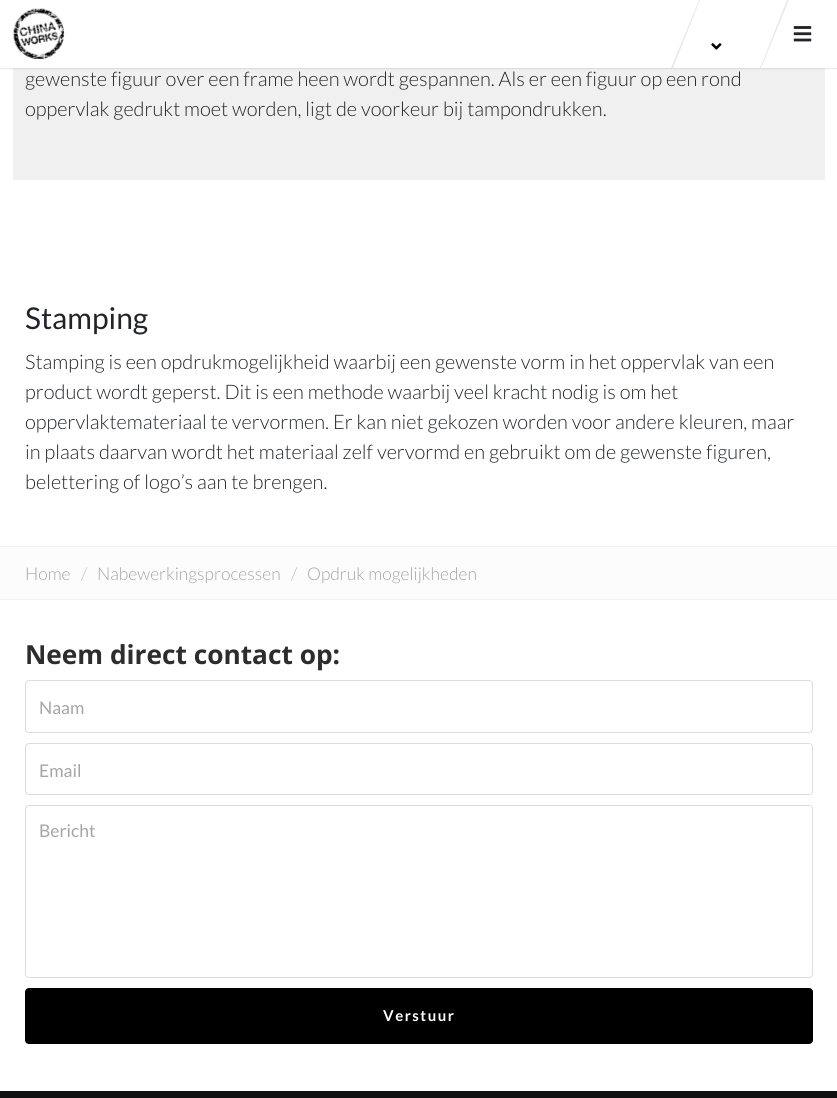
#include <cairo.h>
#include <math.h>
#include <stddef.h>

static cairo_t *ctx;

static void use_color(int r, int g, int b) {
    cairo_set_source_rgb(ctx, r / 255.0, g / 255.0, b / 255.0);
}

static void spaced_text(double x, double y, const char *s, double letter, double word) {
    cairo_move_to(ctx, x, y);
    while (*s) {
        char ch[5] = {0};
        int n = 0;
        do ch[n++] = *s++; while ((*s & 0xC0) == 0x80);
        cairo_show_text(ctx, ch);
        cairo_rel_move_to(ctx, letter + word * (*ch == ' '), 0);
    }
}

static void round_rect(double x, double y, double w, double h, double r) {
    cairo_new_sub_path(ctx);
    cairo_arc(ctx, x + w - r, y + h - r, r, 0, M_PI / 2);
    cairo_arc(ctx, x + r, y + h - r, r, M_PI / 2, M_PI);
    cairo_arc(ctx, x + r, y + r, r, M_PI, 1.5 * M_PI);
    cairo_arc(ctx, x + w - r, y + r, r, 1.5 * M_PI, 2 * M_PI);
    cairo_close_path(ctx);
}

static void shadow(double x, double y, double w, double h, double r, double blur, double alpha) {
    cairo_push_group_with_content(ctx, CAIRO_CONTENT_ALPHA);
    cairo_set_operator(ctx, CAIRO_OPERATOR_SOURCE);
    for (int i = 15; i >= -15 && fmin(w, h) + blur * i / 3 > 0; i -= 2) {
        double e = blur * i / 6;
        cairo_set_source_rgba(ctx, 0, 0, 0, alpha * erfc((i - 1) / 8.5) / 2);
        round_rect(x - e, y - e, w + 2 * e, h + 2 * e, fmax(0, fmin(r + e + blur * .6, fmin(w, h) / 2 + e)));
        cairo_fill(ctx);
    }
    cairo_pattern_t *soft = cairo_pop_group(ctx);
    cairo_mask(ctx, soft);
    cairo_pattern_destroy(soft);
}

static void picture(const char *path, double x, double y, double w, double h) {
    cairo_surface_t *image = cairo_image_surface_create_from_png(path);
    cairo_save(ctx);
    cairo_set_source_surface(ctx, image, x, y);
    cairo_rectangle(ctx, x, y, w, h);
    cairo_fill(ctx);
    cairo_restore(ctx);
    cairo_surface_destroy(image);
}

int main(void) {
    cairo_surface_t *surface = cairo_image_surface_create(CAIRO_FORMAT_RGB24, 837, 1098);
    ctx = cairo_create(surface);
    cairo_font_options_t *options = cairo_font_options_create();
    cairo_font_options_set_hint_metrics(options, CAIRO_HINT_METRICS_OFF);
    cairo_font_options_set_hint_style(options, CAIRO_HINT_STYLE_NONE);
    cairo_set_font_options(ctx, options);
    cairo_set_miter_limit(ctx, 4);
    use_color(255, 255, 255);
    cairo_paint(ctx);
    use_color(240, 240, 240);
    cairo_rectangle(ctx, 13, 68, 812, 112);
    cairo_fill(ctx);
    use_color(0, 0, 0);
    shadow(0, 0, 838, 68, 0, 1, 0.23);
    use_color(255, 255, 255);
    cairo_rectangle(ctx, 0, 0, 837, 68);
    cairo_fill(ctx);
    picture("img1.png", 13, 8, 52, 51);
    use_color(233, 233, 234);
    cairo_new_path(ctx);
    cairo_move_to(ctx, 699, 0);
    cairo_line_to(ctx, 700, 0);
    cairo_line_to(ctx, 673, 68);
    cairo_line_to(ctx, 671, 68);
    cairo_close_path(ctx);
    cairo_fill(ctx);
    picture("img2.png", 711, 43, 11, 7);
    cairo_new_path(ctx);
    cairo_move_to(ctx, 787, 0);
    cairo_line_to(ctx, 789, 0);
    cairo_line_to(ctx, 761, 68);
    cairo_line_to(ctx, 760, 68);
    cairo_close_path(ctx);
    cairo_fill(ctx);
    picture("img3.png", 793, 26, 19, 16);
    cairo_select_font_face(ctx, "Lato Light", CAIRO_FONT_SLANT_NORMAL, CAIRO_FONT_WEIGHT_NORMAL);
    cairo_set_font_size(ctx, 20);
    use_color(33, 37, 41);
    cairo_move_to(ctx, 25, 86);
    cairo_show_text(ctx, "gewenste figuur over een frame heen wordt gespannen. Als er een figuur op een rond");
    cairo_move_to(ctx, 25, 116);
    cairo_show_text(ctx, "oppervlak gedrukt moet worden, ligt de voorkeur bij tampondrukken.");
    cairo_select_font_face(ctx, "Lato", CAIRO_FONT_SLANT_NORMAL, CAIRO_FONT_WEIGHT_NORMAL);
    cairo_set_font_size(ctx, 30);
    cairo_move_to(ctx, 25, 329);
    cairo_show_text(ctx, "Stamping");
    cairo_select_font_face(ctx, "Lato Light", CAIRO_FONT_SLANT_NORMAL, CAIRO_FONT_WEIGHT_NORMAL);
    cairo_set_font_size(ctx, 20);
    cairo_move_to(ctx, 25, 369);
    cairo_show_text(ctx, "Stamping is een opdrukmogelijkheid waarbij een gewenste vorm in het oppervlak van een");
    cairo_move_to(ctx, 25, 399);
    cairo_show_text(ctx, "product wordt geperst. Dit is een methode waarbij veel kracht nodig is om het");
    cairo_move_to(ctx, 25, 429);
    cairo_show_text(ctx, "oppervlaktemateriaal te vervormen. Er kan niet gekozen worden voor andere kleuren, maar");
    cairo_move_to(ctx, 25, 459);
    cairo_show_text(ctx, "in plaats daarvan wordt het materiaal zelf vervormd en gebruikt om de gewenste figuren,");
    cairo_move_to(ctx, 25, 489);
    cairo_show_text(ctx, "belettering of logo’s aan te brengen.");
    use_color(252, 252, 252);
    cairo_rectangle(ctx, 0, 548, 837, 51);
    cairo_fill(ctx);
    use_color(242, 242, 242);
    cairo_rectangle(ctx, 0, 546, 837, 1);
    cairo_fill(ctx);
    cairo_set_font_size(ctx, 17.5);
    use_color(165, 165, 165);
    cairo_move_to(ctx, 25, 580);
    cairo_show_text(ctx, "Home");
    use_color(191, 191, 191);
    cairo_move_to(ctx, 81, 580);
    cairo_show_text(ctx, "/");
    use_color(165, 165, 165);
    cairo_move_to(ctx, 97, 580);
    cairo_show_text(ctx, "Nabewerkingsprocessen");
    use_color(191, 191, 191);
    cairo_move_to(ctx, 291, 580);
    cairo_show_text(ctx, "/");
    use_color(165, 165, 165);
    cairo_move_to(ctx, 307, 580);
    cairo_show_text(ctx, "Opdruk mogelijkheden");
    use_color(242, 242, 242);
    cairo_rectangle(ctx, 0, 599, 837, 1);
    cairo_fill(ctx);
    cairo_select_font_face(ctx, "Open Sans", CAIRO_FONT_SLANT_NORMAL, CAIRO_FONT_WEIGHT_BOLD);
    cairo_set_font_size(ctx, 26.25);
    use_color(45, 45, 45);
    cairo_move_to(ctx, 25, 664);
    cairo_show_text(ctx, "Neem direct contact op:");
    round_rect(25.5, 680.5, 787, 52, 3.5);
    use_color(221, 221, 221);
    cairo_set_line_width(ctx, 1);
    cairo_stroke(ctx);
    cairo_select_font_face(ctx, "Lato", CAIRO_FONT_SLANT_NORMAL, CAIRO_FONT_WEIGHT_NORMAL);
    cairo_set_font_size(ctx, 17.5);
    use_color(165, 165, 165);
    cairo_move_to(ctx, 39, 714);
    cairo_show_text(ctx, "Naam");
    round_rect(25.5, 743.5, 787, 51, 3.5);
    use_color(221, 221, 221);
    cairo_stroke(ctx);
    use_color(165, 165, 165);
    cairo_move_to(ctx, 39, 777);
    cairo_show_text(ctx, "Email");
    round_rect(25.5, 805.5, 787, 172, 3.5);
    use_color(221, 221, 221);
    cairo_stroke(ctx);
    use_color(165, 165, 165);
    cairo_move_to(ctx, 39, 837);
    cairo_show_text(ctx, "Bericht");
    use_color(0, 0, 0);
    round_rect(25, 988, 788, 56, 4);
    cairo_fill(ctx);
    cairo_select_font_face(ctx, "Lato", CAIRO_FONT_SLANT_NORMAL, CAIRO_FONT_WEIGHT_BOLD);
    cairo_set_font_size(ctx, 15);
    use_color(255, 255, 255);
    spaced_text(383, 1021, "Verstuur", 1.5, 0);
    use_color(16, 16, 16);
    cairo_rectangle(ctx, 0, 1091, 837, 7);
    cairo_fill(ctx);
    cairo_surface_write_to_png(surface, "result.png");
    cairo_font_options_destroy(options);
    cairo_destroy(ctx);
    cairo_surface_destroy(surface);
    return 0;
}
